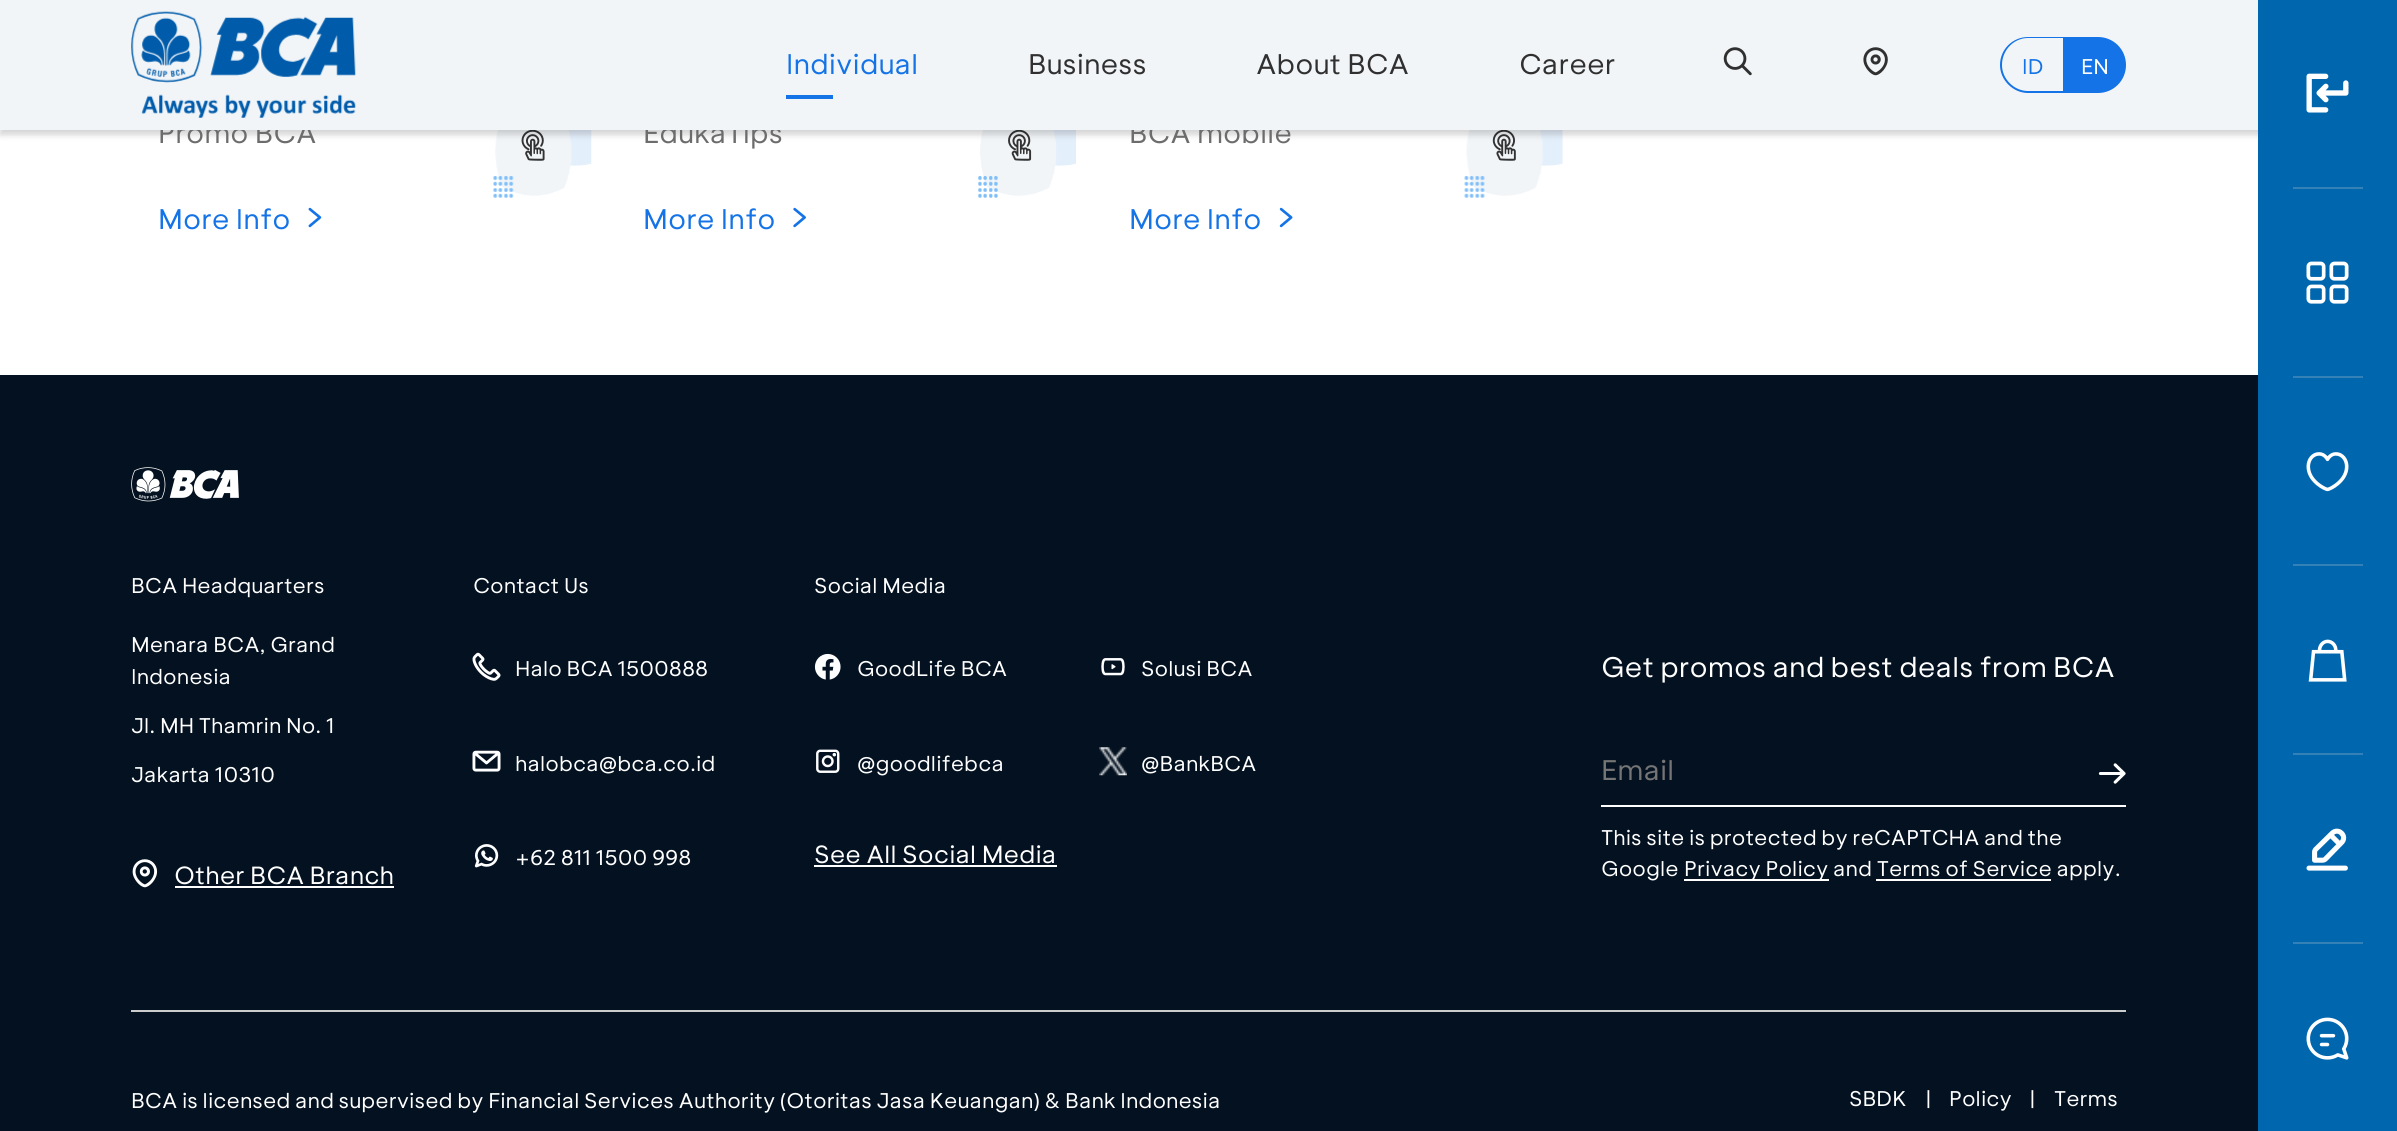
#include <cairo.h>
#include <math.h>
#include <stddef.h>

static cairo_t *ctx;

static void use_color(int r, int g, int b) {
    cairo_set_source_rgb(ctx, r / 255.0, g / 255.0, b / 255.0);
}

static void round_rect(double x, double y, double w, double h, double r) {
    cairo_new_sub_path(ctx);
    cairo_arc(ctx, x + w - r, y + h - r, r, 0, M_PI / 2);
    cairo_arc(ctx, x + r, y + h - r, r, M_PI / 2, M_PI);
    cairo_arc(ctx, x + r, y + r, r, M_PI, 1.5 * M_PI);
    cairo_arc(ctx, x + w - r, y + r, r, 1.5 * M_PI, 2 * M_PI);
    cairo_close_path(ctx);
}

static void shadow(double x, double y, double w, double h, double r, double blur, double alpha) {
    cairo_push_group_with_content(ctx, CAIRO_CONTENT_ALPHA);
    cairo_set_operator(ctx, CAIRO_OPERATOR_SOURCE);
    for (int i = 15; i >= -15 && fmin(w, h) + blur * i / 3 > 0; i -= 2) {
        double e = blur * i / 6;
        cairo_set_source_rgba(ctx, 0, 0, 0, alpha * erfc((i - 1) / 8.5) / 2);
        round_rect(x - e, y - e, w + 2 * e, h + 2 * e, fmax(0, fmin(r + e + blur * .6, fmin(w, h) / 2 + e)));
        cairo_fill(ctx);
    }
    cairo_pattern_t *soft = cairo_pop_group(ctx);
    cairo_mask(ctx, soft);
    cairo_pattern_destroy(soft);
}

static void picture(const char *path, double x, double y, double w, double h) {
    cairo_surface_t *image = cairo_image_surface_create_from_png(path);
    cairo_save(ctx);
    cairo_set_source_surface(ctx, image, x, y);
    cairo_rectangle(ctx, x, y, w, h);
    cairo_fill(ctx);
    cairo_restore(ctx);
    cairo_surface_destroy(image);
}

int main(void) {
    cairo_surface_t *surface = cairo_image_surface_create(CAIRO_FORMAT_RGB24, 2397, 1131);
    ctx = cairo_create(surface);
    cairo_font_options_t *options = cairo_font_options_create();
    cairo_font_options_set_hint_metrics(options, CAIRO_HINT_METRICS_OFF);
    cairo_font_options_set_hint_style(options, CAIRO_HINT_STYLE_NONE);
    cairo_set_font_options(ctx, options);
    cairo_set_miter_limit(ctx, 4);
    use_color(255, 255, 255);
    cairo_paint(ctx);
    picture("img10.png", 493, 130, 99, 68);
    picture("img12.png", 521, 130, 24, 31);
    picture("img13.png", 978, 130, 98, 68);
    picture("img15.png", 1008, 130, 24, 31);
    picture("img16.png", 1464, 130, 99, 68);
    picture("img18.png", 1492, 130, 24, 31);
    use_color(0, 0, 0);
    shadow(0, 5, 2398, 130, 0, 2.5, 0.1);
    shadow(0, 5, 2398, 130, 0, 3.5, 0.05);
    shadow(0, 2, 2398, 129, 0, 7, 0.05);
    cairo_select_font_face(ctx, "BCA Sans", CAIRO_FONT_SLANT_NORMAL, CAIRO_FONT_WEIGHT_NORMAL);
    cairo_set_font_size(ctx, 28);
    use_color(108, 108, 108);
    cairo_move_to(ctx, 158, 143);
    cairo_show_text(ctx, "Promo BCA");
    cairo_move_to(ctx, 643, 143);
    cairo_show_text(ctx, "EdukaTips");
    cairo_move_to(ctx, 1129, 143);
    cairo_show_text(ctx, "BCA mobile");
    use_color(241, 245, 248);
    cairo_rectangle(ctx, 0, 0, 2258, 130);
    cairo_fill(ctx);
    picture("img1.png", 131, 11, 225, 107);
    use_color(20, 115, 230);
    cairo_move_to(ctx, 786, 74);
    cairo_show_text(ctx, "Individual");
    cairo_rectangle(ctx, 786, 95, 47, 4);
    cairo_fill(ctx);
    use_color(48, 48, 48);
    cairo_move_to(ctx, 1028, 74);
    cairo_show_text(ctx, "Business");
    cairo_move_to(ctx, 1256, 74);
    cairo_show_text(ctx, "About BCA");
    cairo_move_to(ctx, 1519, 74);
    cairo_show_text(ctx, "Career");
    picture("img2.png", 1723, 47, 29, 29);
    picture("img3.png", 1863, 47, 25, 29);
    use_color(20, 115, 230);
    cairo_set_fill_rule(ctx, CAIRO_FILL_RULE_EVEN_ODD);
    cairo_new_path(ctx);
    cairo_move_to(ctx, 2028, 37);
    cairo_line_to(ctx, 2063, 37);
    cairo_line_to(ctx, 2063, 93);
    cairo_line_to(ctx, 2028, 93);
    cairo_curve_to(ctx, 2013, 93, 2000, 80, 2000, 65);
    cairo_curve_to(ctx, 2000, 49, 2013, 37, 2028, 37);
    cairo_close_path(ctx);
    cairo_move_to(ctx, 2028, 38);
    cairo_line_to(ctx, 2063, 38);
    cairo_line_to(ctx, 2063, 91);
    cairo_line_to(ctx, 2028, 91);
    cairo_curve_to(ctx, 2014, 91, 2002, 79, 2002, 65);
    cairo_curve_to(ctx, 2002, 50, 2014, 38, 2028, 38);
    cairo_close_path(ctx);
    cairo_fill(ctx);
    cairo_set_font_size(ctx, 21);
    cairo_move_to(ctx, 2022, 74);
    cairo_show_text(ctx, "ID");
    cairo_new_path(ctx);
    cairo_move_to(ctx, 2064, 38);
    cairo_line_to(ctx, 2098, 38);
    cairo_curve_to(ctx, 2113, 38, 2125, 50, 2125, 65);
    cairo_curve_to(ctx, 2125, 80, 2113, 92, 2098, 92);
    cairo_line_to(ctx, 2064, 92);
    cairo_close_path(ctx);
    cairo_fill_preserve(ctx);
    cairo_stroke(ctx);
    use_color(255, 255, 255);
    cairo_move_to(ctx, 2081, 74);
    cairo_show_text(ctx, "EN");
    use_color(0, 102, 174);
    cairo_rectangle(ctx, 2258, 0, 139, 1131);
    cairo_fill(ctx);
    picture("img4.png", 2306, 73, 43, 40);
    use_color(52, 129, 184);
    cairo_rectangle(ctx, 2293, 187, 70, 2);
    cairo_fill(ctx);
    picture("img5.png", 2306, 261, 43, 43);
    cairo_rectangle(ctx, 2293, 376, 70, 2);
    cairo_fill(ctx);
    picture("img6.png", 2306, 452, 43, 40);
    cairo_rectangle(ctx, 2293, 564, 70, 2);
    cairo_fill(ctx);
    picture("img7.png", 2308, 639, 39, 43);
    cairo_rectangle(ctx, 2293, 753, 70, 2);
    cairo_fill(ctx);
    picture("img8.png", 2306, 828, 42, 43);
    cairo_rectangle(ctx, 2293, 942, 70, 2);
    cairo_fill(ctx);
    picture("img9.png", 2306, 1017, 43, 43);
    cairo_set_font_size(ctx, 28);
    use_color(20, 115, 230);
    cairo_move_to(ctx, 158, 229);
    cairo_show_text(ctx, "More Info");
    picture("img11.png", 308, 207, 14, 21);
    cairo_move_to(ctx, 643, 229);
    cairo_show_text(ctx, "More Info");
    picture("img14.png", 793, 207, 13, 21);
    cairo_move_to(ctx, 1129, 229);
    cairo_show_text(ctx, "More Info");
    picture("img17.png", 1279, 207, 14, 21);
    use_color(3, 17, 32);
    cairo_rectangle(ctx, 0, 375, 2258, 756);
    cairo_fill(ctx);
    picture("img19.png", 131, 467, 108, 35);
    cairo_set_font_size(ctx, 21);
    use_color(255, 255, 255);
    cairo_move_to(ctx, 131, 593);
    cairo_show_text(ctx, "BCA Headquarters");
    cairo_move_to(ctx, 131, 652);
    cairo_show_text(ctx, "Menara BCA, Grand");
    cairo_move_to(ctx, 131, 684);
    cairo_show_text(ctx, "Indonesia");
    cairo_move_to(ctx, 131, 733);
    cairo_show_text(ctx, "Jl. MH Thamrin No. 1");
    cairo_move_to(ctx, 131, 782);
    cairo_show_text(ctx, "Jakarta 10310");
    picture("img20.png", 132, 859, 26, 29);
    cairo_set_font_size(ctx, 24.5);
    cairo_move_to(ctx, 174, 884);
    cairo_show_text(ctx, "Other BCA Branch");
    cairo_rectangle(ctx, 175, 886, 219, 2);
    cairo_fill(ctx);
    cairo_set_font_size(ctx, 21);
    cairo_move_to(ctx, 473, 593);
    cairo_show_text(ctx, "Contact Us");
    picture("img21.png", 472, 652, 29, 29);
    cairo_move_to(ctx, 515, 676);
    cairo_show_text(ctx, "Halo BCA 1500888");
    picture("img22.png", 472, 750, 29, 22);
    cairo_move_to(ctx, 515, 771);
    cairo_show_text(ctx, "halobca@bca.co.id");
    picture("img23.png", 474, 844, 25, 24);
    cairo_move_to(ctx, 515, 865);
    cairo_show_text(ctx, "+62 811 1500 998");
    cairo_move_to(ctx, 814, 593);
    cairo_show_text(ctx, "Social Media");
    picture("img24.png", 814, 653, 27, 27);
    cairo_move_to(ctx, 857, 676);
    cairo_show_text(ctx, "GoodLife BCA");
    picture("img25.png", 816, 749, 24, 24);
    cairo_move_to(ctx, 857, 771);
    cairo_show_text(ctx, "@goodlifebca");
    picture("img26.png", 1101, 658, 24, 18);
    cairo_move_to(ctx, 1141, 676);
    cairo_show_text(ctx, "Solusi BCA");
    picture("img27.png", 1099, 747, 28, 29);
    cairo_move_to(ctx, 1141, 771);
    cairo_show_text(ctx, "@BankBCA");
    cairo_set_font_size(ctx, 24.5);
    cairo_move_to(ctx, 814, 863);
    cairo_show_text(ctx, "See All Social Media");
    cairo_rectangle(ctx, 814, 865, 243, 2);
    cairo_fill(ctx);
    cairo_set_font_size(ctx, 28);
    cairo_move_to(ctx, 1601, 677);
    cairo_show_text(ctx, "Get promos and best deals from BCA");
    cairo_rectangle(ctx, 1601, 805, 525, 2);
    cairo_fill(ctx);
    use_color(117, 117, 117);
    cairo_move_to(ctx, 1601, 780);
    cairo_show_text(ctx, "Email");
    picture("img28.png", 2098, 763, 28, 21);
    cairo_set_font_size(ctx, 21);
    use_color(255, 255, 255);
    cairo_move_to(ctx, 1601, 845);
    cairo_show_text(ctx, "This site is protected by reCAPTCHA and the");
    cairo_move_to(ctx, 1601, 876);
    cairo_show_text(ctx, "Google");
    cairo_rectangle(ctx, 1684, 879, 145, 2);
    cairo_fill(ctx);
    cairo_move_to(ctx, 1684, 876);
    cairo_show_text(ctx, "Privacy Policy and Terms of Service apply.");
    cairo_rectangle(ctx, 1876, 879, 175, 2);
    cairo_fill(ctx);
    use_color(204, 204, 204);
    cairo_rectangle(ctx, 131, 1010, 1995, 2);
    cairo_fill(ctx);
    use_color(255, 255, 255);
    cairo_move_to(ctx, 131, 1108);
    cairo_show_text(ctx, "BCA is licensed and supervised by Financial Services Authority (Otoritas Jasa Keuangan) & Bank Indonesia");
    cairo_move_to(ctx, 1849, 1106);
    cairo_show_text(ctx, "SBDK");
    cairo_move_to(ctx, 1925, 1106);
    cairo_show_text(ctx, "|");
    cairo_move_to(ctx, 1949, 1106);
    cairo_show_text(ctx, "Policy");
    cairo_move_to(ctx, 2029, 1106);
    cairo_show_text(ctx, "|");
    cairo_move_to(ctx, 2054, 1106);
    cairo_show_text(ctx, "Terms");
    cairo_surface_write_to_png(surface, "result.png");
    cairo_font_options_destroy(options);
    cairo_destroy(ctx);
    cairo_surface_destroy(surface);
    return 0;
}
